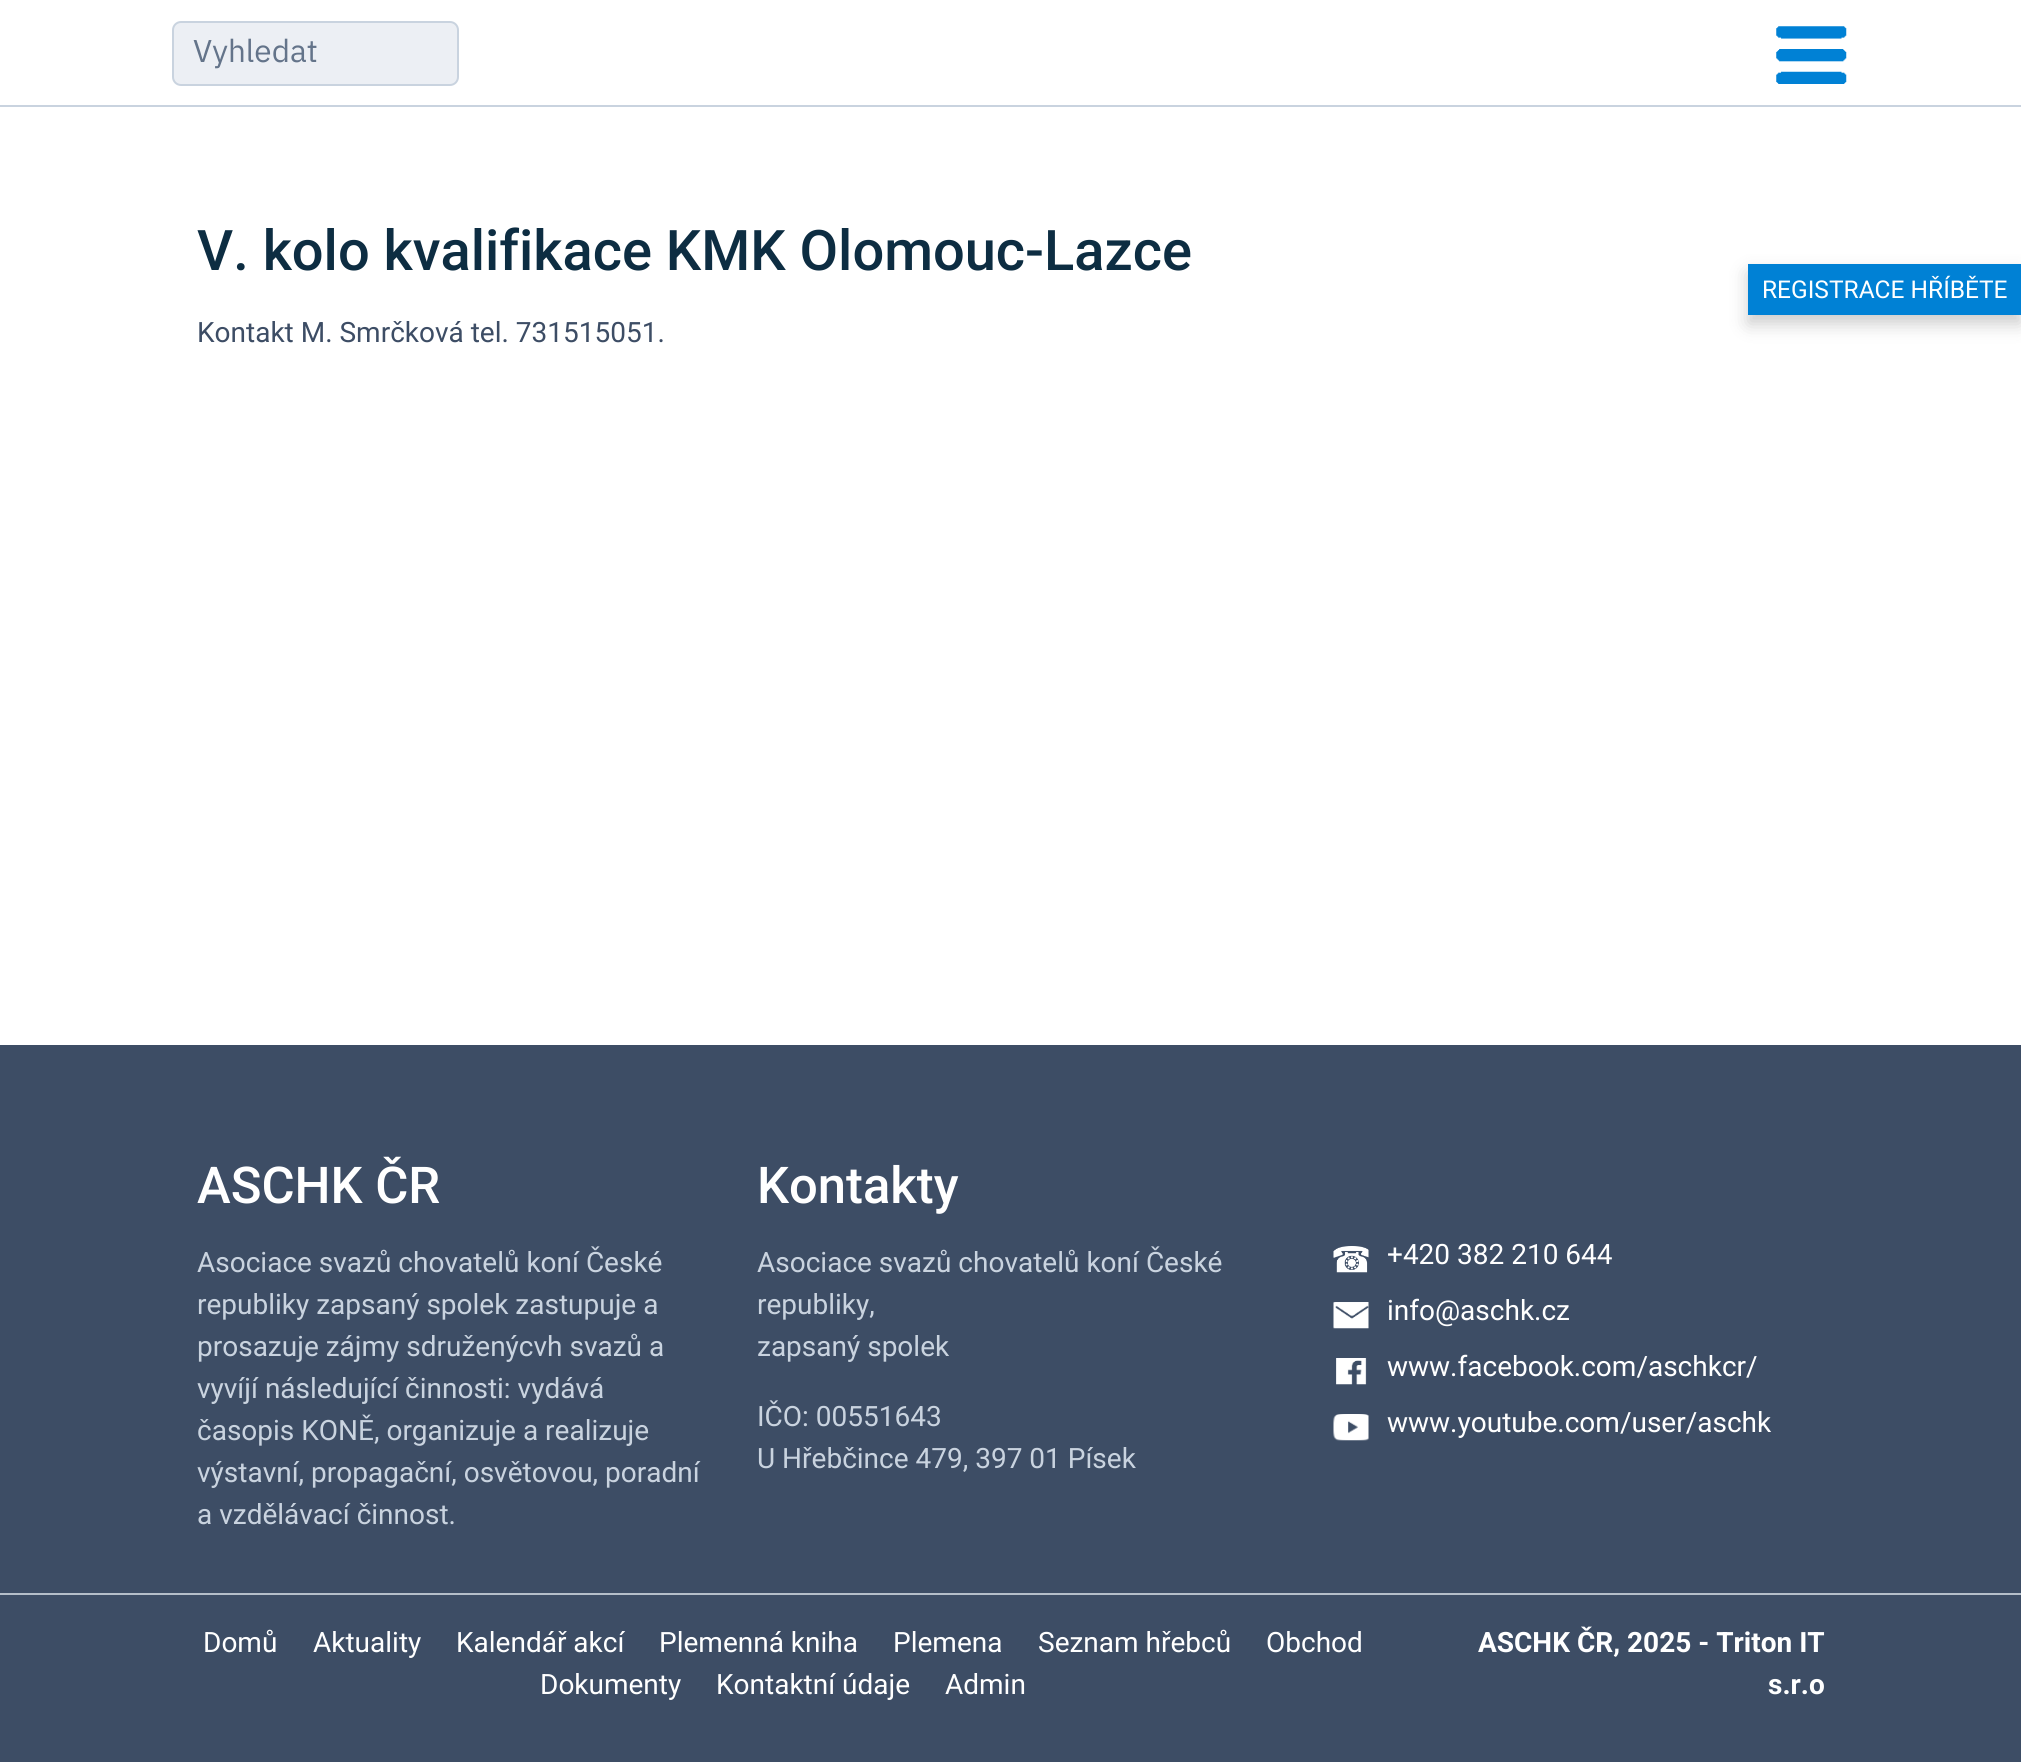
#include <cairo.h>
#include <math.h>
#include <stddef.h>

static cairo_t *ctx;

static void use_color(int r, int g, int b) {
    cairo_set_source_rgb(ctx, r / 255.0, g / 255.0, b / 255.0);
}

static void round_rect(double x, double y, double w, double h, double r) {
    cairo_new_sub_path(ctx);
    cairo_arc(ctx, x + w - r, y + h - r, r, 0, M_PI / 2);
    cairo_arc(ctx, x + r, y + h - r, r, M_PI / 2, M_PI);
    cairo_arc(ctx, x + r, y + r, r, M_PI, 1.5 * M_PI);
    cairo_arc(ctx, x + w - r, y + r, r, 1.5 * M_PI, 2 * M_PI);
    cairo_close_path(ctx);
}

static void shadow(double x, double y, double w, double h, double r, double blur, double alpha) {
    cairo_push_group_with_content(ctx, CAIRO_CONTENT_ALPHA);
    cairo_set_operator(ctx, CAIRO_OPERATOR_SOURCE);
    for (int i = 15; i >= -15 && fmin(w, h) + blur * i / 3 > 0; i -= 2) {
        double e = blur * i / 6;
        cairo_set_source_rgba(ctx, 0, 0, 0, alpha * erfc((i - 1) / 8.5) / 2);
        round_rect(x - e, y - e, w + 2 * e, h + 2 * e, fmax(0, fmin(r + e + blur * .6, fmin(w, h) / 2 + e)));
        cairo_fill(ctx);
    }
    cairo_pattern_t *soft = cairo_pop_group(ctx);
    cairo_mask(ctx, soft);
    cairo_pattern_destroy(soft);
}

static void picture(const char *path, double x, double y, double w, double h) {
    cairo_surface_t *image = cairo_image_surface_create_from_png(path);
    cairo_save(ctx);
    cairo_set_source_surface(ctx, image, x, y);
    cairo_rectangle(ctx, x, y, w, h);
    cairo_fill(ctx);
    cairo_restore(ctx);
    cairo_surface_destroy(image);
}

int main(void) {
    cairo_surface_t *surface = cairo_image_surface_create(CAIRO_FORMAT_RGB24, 2021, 1762);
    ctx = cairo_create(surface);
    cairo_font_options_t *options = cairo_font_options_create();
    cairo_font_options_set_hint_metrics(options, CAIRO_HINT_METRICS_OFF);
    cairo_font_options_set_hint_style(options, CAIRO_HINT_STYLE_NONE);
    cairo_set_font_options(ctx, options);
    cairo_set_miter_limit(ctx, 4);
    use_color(255, 255, 255);
    cairo_paint(ctx);
    use_color(201, 211, 223);
    cairo_rectangle(ctx, 0, 105, 2021, 2);
    cairo_fill(ctx);
    use_color(236, 239, 244);
    round_rect(173, 22, 285, 63, 8);
    cairo_fill_preserve(ctx);
    use_color(201, 211, 223);
    cairo_stroke(ctx);
    cairo_select_font_face(ctx, "IBM Plex Sans", CAIRO_FONT_SLANT_NORMAL, CAIRO_FONT_WEIGHT_NORMAL);
    cairo_set_font_size(ctx, 31.5);
    use_color(100, 116, 138);
    cairo_move_to(ctx, 193, 62);
    cairo_show_text(ctx, "Vyhledat");
    picture("img1.png", 1776, 26, 71, 58);
    cairo_select_font_face(ctx, "Roboto Medium", CAIRO_FONT_SLANT_NORMAL, CAIRO_FONT_WEIGHT_NORMAL);
    cairo_set_font_size(ctx, 56);
    use_color(13, 45, 66);
    cairo_move_to(ctx, 197, 270);
    cairo_show_text(ctx, "V. kolo kvalifikace KMK Olomouc-Lazce");
    cairo_select_font_face(ctx, "Roboto", CAIRO_FONT_SLANT_NORMAL, CAIRO_FONT_WEIGHT_NORMAL);
    cairo_set_font_size(ctx, 28);
    use_color(61, 77, 101);
    cairo_move_to(ctx, 197, 342);
    cairo_show_text(ctx, "Kontakt M. Smrčková tel. 731515051.");
    use_color(0, 0, 0);
    shadow(1748, 273, 273, 51, 0, 9, 0.2);
    use_color(0, 129, 213);
    cairo_rectangle(ctx, 1748, 264, 273, 51);
    cairo_fill(ctx);
    cairo_set_font_size(ctx, 24.5);
    use_color(255, 255, 255);
    cairo_move_to(ctx, 1762, 298);
    cairo_show_text(ctx, "REGISTRACE HŘÍBĚTE");
    use_color(61, 77, 101);
    cairo_rectangle(ctx, 0, 1045, 2021, 717);
    cairo_fill(ctx);
    cairo_select_font_face(ctx, "Roboto Medium", CAIRO_FONT_SLANT_NORMAL, CAIRO_FONT_WEIGHT_NORMAL);
    cairo_set_font_size(ctx, 50.75);
    use_color(255, 255, 255);
    cairo_move_to(ctx, 197, 1203);
    cairo_show_text(ctx, "ASCHK ČR");
    cairo_select_font_face(ctx, "Roboto", CAIRO_FONT_SLANT_NORMAL, CAIRO_FONT_WEIGHT_NORMAL);
    cairo_set_font_size(ctx, 28);
    use_color(201, 211, 223);
    cairo_move_to(ctx, 197, 1272);
    cairo_show_text(ctx, "Asociace svazů chovatelů koní České");
    cairo_move_to(ctx, 197, 1314);
    cairo_show_text(ctx, "republiky zapsaný spolek zastupuje a");
    cairo_move_to(ctx, 197, 1356);
    cairo_show_text(ctx, "prosazuje zájmy sdruženýcvh svazů a");
    cairo_move_to(ctx, 197, 1398);
    cairo_show_text(ctx, "vyvíjí následující činnosti: vydává");
    cairo_move_to(ctx, 197, 1440);
    cairo_show_text(ctx, "časopis KONĚ, organizuje a realizuje");
    cairo_move_to(ctx, 197, 1482);
    cairo_show_text(ctx, "výstavní, propagační, osvětovou, poradní");
    cairo_move_to(ctx, 197, 1524);
    cairo_show_text(ctx, "a vzdělávací činnost.");
    cairo_select_font_face(ctx, "Roboto Medium", CAIRO_FONT_SLANT_NORMAL, CAIRO_FONT_WEIGHT_NORMAL);
    cairo_set_font_size(ctx, 50.75);
    use_color(255, 255, 255);
    cairo_move_to(ctx, 757, 1203);
    cairo_show_text(ctx, "Kontakty");
    cairo_select_font_face(ctx, "Roboto", CAIRO_FONT_SLANT_NORMAL, CAIRO_FONT_WEIGHT_NORMAL);
    cairo_set_font_size(ctx, 28);
    use_color(201, 211, 223);
    cairo_move_to(ctx, 757, 1272);
    cairo_show_text(ctx, "Asociace svazů chovatelů koní České");
    cairo_move_to(ctx, 757, 1314);
    cairo_show_text(ctx, "republiky,");
    cairo_move_to(ctx, 757, 1356);
    cairo_show_text(ctx, "zapsaný spolek");
    cairo_move_to(ctx, 757, 1426);
    cairo_show_text(ctx, "IČO: 00551643");
    cairo_move_to(ctx, 757, 1468);
    cairo_show_text(ctx, "U Hřebčince 479, 397 01 Písek");
    picture("img2.png", 1333, 1246, 36, 27);
    use_color(255, 255, 255);
    cairo_move_to(ctx, 1387, 1264);
    cairo_show_text(ctx, "+420 382 210 644");
    picture("img3.png", 1333, 1302, 36, 27);
    cairo_move_to(ctx, 1387, 1320);
    cairo_show_text(ctx, "info@aschk.cz");
    picture("img4.png", 1336, 1358, 31, 27);
    cairo_move_to(ctx, 1387, 1376);
    cairo_show_text(ctx, "www.facebook.com/aschkcr/");
    picture("img5.png", 1333, 1414, 36, 27);
    cairo_move_to(ctx, 1387, 1432);
    cairo_show_text(ctx, "www.youtube.com/user/aschk");
    use_color(181, 190, 201);
    cairo_rectangle(ctx, 0, 1593, 2021, 2);
    cairo_fill(ctx);
    use_color(255, 255, 255);
    cairo_move_to(ctx, 203, 1652);
    cairo_show_text(ctx, "Domů");
    cairo_move_to(ctx, 313, 1652);
    cairo_show_text(ctx, "Aktuality");
    cairo_move_to(ctx, 456, 1652);
    cairo_show_text(ctx, "Kalendář akcí");
    cairo_move_to(ctx, 659, 1652);
    cairo_show_text(ctx, "Plemenná kniha");
    cairo_move_to(ctx, 893, 1652);
    cairo_show_text(ctx, "Plemena");
    cairo_move_to(ctx, 1038, 1652);
    cairo_show_text(ctx, "Seznam hřebců");
    cairo_move_to(ctx, 1266, 1652);
    cairo_show_text(ctx, "Obchod");
    cairo_move_to(ctx, 540, 1694);
    cairo_show_text(ctx, "Dokumenty");
    cairo_move_to(ctx, 716, 1694);
    cairo_show_text(ctx, "Kontaktní údaje");
    cairo_move_to(ctx, 945, 1694);
    cairo_show_text(ctx, "Admin");
    cairo_select_font_face(ctx, "Roboto", CAIRO_FONT_SLANT_NORMAL, CAIRO_FONT_WEIGHT_BOLD);
    cairo_move_to(ctx, 1478, 1652);
    cairo_show_text(ctx, "ASCHK ČR, 2025 - Triton IT");
    cairo_move_to(ctx, 1768, 1694);
    cairo_show_text(ctx, "s.r.o");
    cairo_surface_write_to_png(surface, "result.png");
    cairo_font_options_destroy(options);
    cairo_destroy(ctx);
    cairo_surface_destroy(surface);
    return 0;
}
